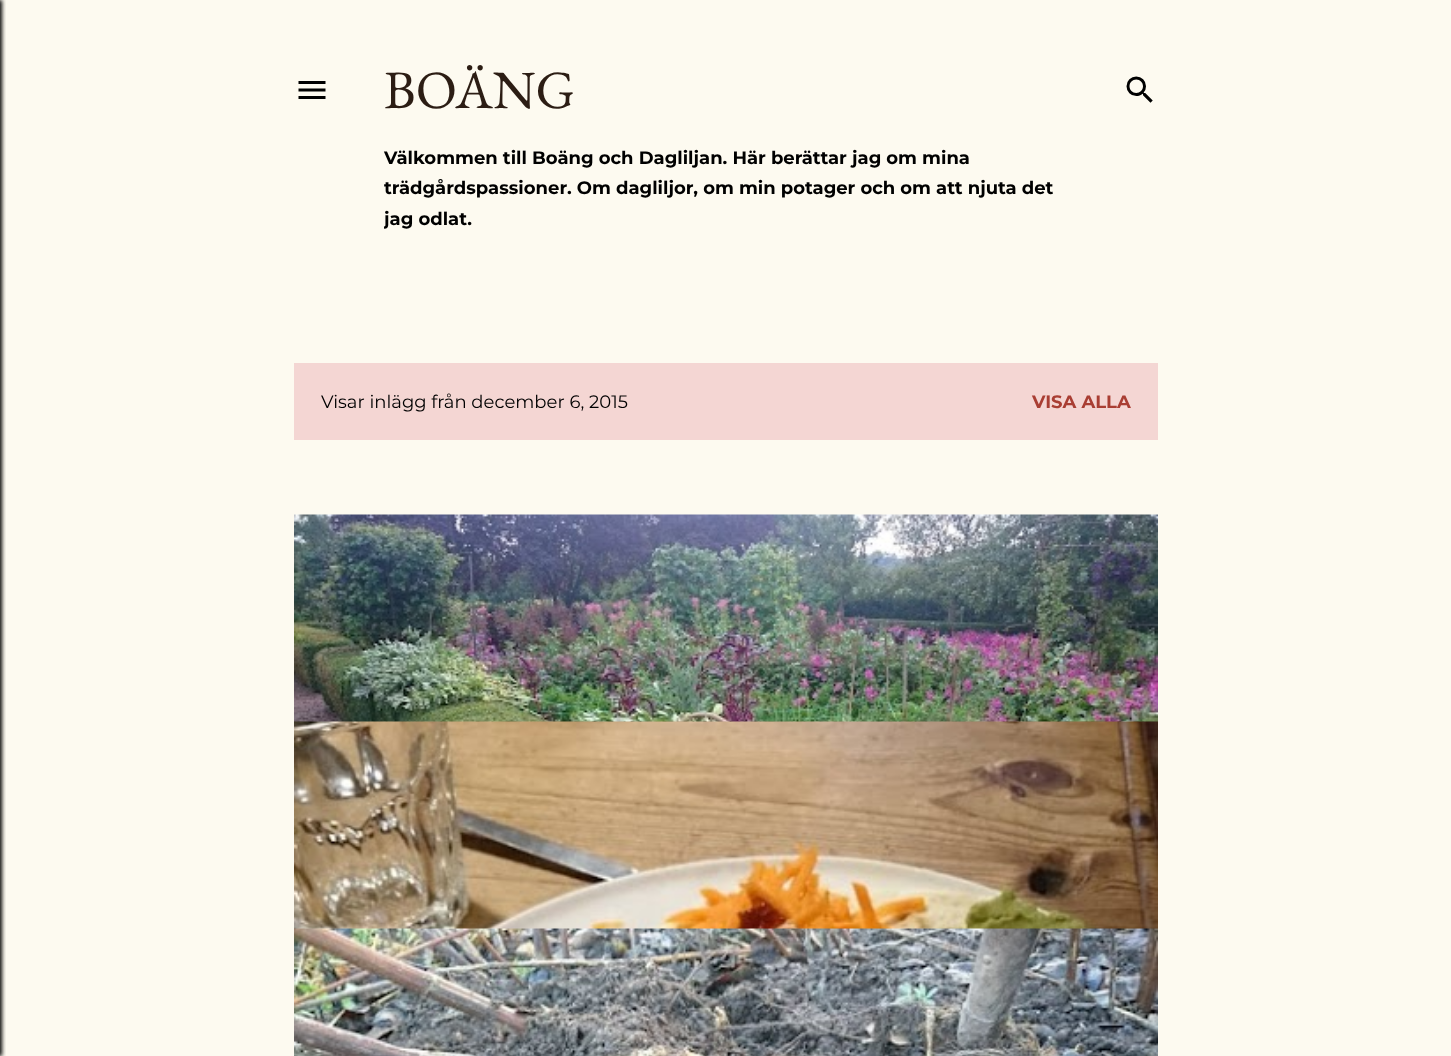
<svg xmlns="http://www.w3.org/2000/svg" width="1451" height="1056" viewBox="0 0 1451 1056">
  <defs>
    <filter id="blur1" x="-50%" y="-200%" width="200%" height="500%"><feGaussianBlur stdDeviation="2"/></filter>
    <clipPath id="clip1"><rect x="384" y="54" width="684" height="198"/></clipPath>
  </defs>
  <rect width="100%" height="100%" fill="#fdfaf0"/>
  <rect x="-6" y="0" width="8" height="1056" fill="#000000" filter="url(#blur1)"/>
  <image x="298" y="81" width="28" height="18" href="img1.png"/>
  <text x="384" y="108" font-family="EB Garamond" font-size="54" fill="#2c1d14">BOÄNG</text>
  <text x="384" y="164" font-family="Montserrat" font-size="18" font-weight="bold" fill="#000000">Välkommen till Boäng och Dagliljan. Här berättar jag om mina</text>
  <text x="384" y="194" font-family="Montserrat" font-size="18" font-weight="bold" fill="#000000">trädgårdspassioner. Om dagliljor, om min potager och om att njuta det</text>
  <g clip-path="url(#clip1)">
    <text x="384" y="225" font-family="Montserrat" font-size="18" font-weight="bold" fill="#000000">jag odlat.</text>
  </g>
  <image x="1126" y="76" width="27" height="27" href="img2.png"/>
  <rect x="294" y="363" width="864" height="77" fill="#f4d6d3"/>
  <text x="321" y="408" font-family="Montserrat" font-size="18" fill="#000000">Visar inlägg från december 6, 2015</text>
  <text x="1032" y="408" font-family="Montserrat" font-size="18" font-weight="bold" fill="#a93e33">VISA ALLA</text>
  <image x="294" y="514" width="864" height="208" href="img3.png"/>
  <image x="294" y="721" width="864" height="208" href="img4.png"/>
  <image x="294" y="928" width="864" height="128" href="img5.png"/>
</svg>
